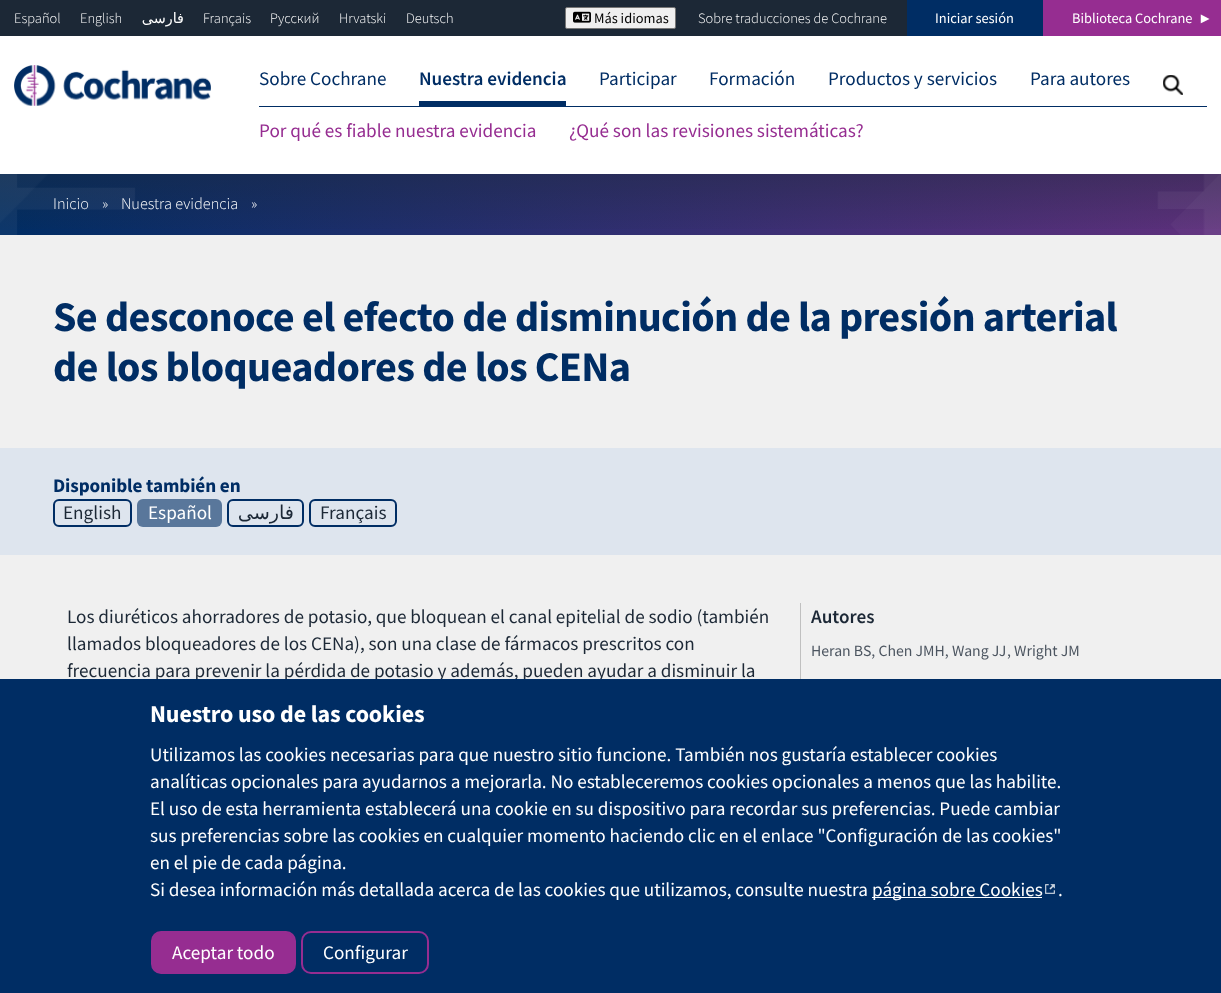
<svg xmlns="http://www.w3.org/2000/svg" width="1221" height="993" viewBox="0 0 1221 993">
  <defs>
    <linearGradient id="g1" gradientUnits="userSpaceOnUse" x1="0" y1="205" x2="1221" y2="204"><stop offset="0" stop-color="#002d64"/><stop offset="1" stop-color="#5f307d"/></linearGradient>
    <linearGradient id="g2" gradientUnits="userSpaceOnUse" x1="611" y1="78" x2="611" y2="235"><stop offset="0" stop-color="#1c2836"/><stop offset="1" stop-color="#1c2836" stop-opacity="0"/></linearGradient>
  </defs>
  <rect width="100%" height="100%" fill="#f0f0f0"/>
  <rect x="0" y="0" width="907" height="36" fill="#1c2836"/>
  <rect x="0" y="36" width="1221" height="138" fill="#ffffff"/>
  <text x="14" y="23" font-family="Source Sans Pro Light" font-size="14.4" font-weight="300" fill="#ffffff">Español</text>
  <text x="80" y="23" font-family="Source Sans Pro Light" font-size="14.4" font-weight="300" fill="#ffffff">English</text>
  <text x="184" y="23" font-family="DejaVu Sans" font-size="14.4" direction="rtl" fill="#ffffff">فارسی</text>
  <text x="203" y="23" font-family="Source Sans Pro Light" font-size="14.4" font-weight="300" fill="#ffffff">Français</text>
  <text x="270" y="23" font-family="Source Sans Pro Light" font-size="14.4" font-weight="300" fill="#ffffff">Русский</text>
  <text x="339" y="23" font-family="Source Sans Pro Light" font-size="14.4" font-weight="300" fill="#ffffff">Hrvatski</text>
  <text x="406" y="23" font-family="Source Sans Pro Light" font-size="14.4" font-weight="300" fill="#ffffff">Deutsch</text>
  <rect x="565.5" y="7.5" width="110" height="21" rx="1.5" fill="#efefef" stroke="#767676"/>
  <image x="573" y="11" width="18" height="12" href="img1.png"/>
  <text x="594" y="23" font-family="Source Sans Pro" font-size="14.4" fill="#000000">Más idiomas</text>
  <text x="698" y="23" font-family="Source Sans Pro Light" font-size="14.4" font-weight="300" fill="#ffffff">Sobre traducciones de Cochrane</text>
  <rect x="907" y="0" width="136" height="36" fill="#002d64"/>
  <text x="935" y="23" font-family="Source Sans Pro" font-size="14.4" fill="#ffffff">Iniciar sesión</text>
  <rect x="1043" y="0" width="178" height="36" fill="#962d91"/>
  <text x="1072" y="23" font-family="Source Sans Pro" font-size="14.4" fill="#ffffff">Biblioteca Cochrane</text>
  <text x="1198" y="23" font-family="Liberation Sans" font-size="14.4" fill="#ffffff">►</text>
  <image x="14" y="65" width="197" height="41" href="img2.png"/>
  <text x="259" y="85" font-family="Source Sans Pro" font-size="19.2" fill="#002d64">Sobre Cochrane</text>
  <text x="709" y="85" font-family="Source Sans Pro" font-size="19.2" fill="#002d64">Formación</text>
  <rect x="419" y="101" width="147" height="5" fill="#002d64"/>
  <text x="419" y="85" font-family="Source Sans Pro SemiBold" font-size="19.2" font-weight="600" fill="#002d64">Nuestra evidencia</text>
  <rect x="259" y="106" width="948" height="1" fill="#002d64"/>
  <text x="259" y="137" font-family="Source Sans Pro" font-size="19.2" fill="#962d91">Por qué es fiable nuestra evidencia</text>
  <text x="569" y="137" font-family="Source Sans Pro" font-size="19.2" fill="#962d91">¿Qué son las revisiones sistemáticas?</text>
  <text x="599" y="85" font-family="Source Sans Pro" font-size="19.2" fill="#002d64">Participar</text>
  <text x="828" y="85" font-family="Source Sans Pro" font-size="19.2" fill="#002d64">Productos y servicios</text>
  <text x="1030" y="85" font-family="Source Sans Pro" font-size="19.2" fill="#002d64">Para autores</text>
  <image x="1163" y="75" width="20" height="20" href="img3.png"/>
  <rect x="0" y="174" width="1221" height="61" fill="url(#g1)"/>
  <rect x="0" y="174" width="1221" height="55" fill="url(#g2)"/>
  <image x="0" y="174" width="1221" height="61" href="img4.png"/>
  <image x="0" y="174" width="1221" height="61" href="img5.png"/>
  <text x="53" y="209" font-family="Source Sans Pro Light" font-size="16.25" font-weight="300" fill="#ffffff">Inicio</text>
  <text x="102" y="209" font-family="Source Sans Pro Light" font-size="15.75" font-weight="300" fill="#ffffff">»</text>
  <text x="121" y="209" font-family="Source Sans Pro Light" font-size="16.25" font-weight="300" fill="#ffffff">Nuestra evidencia</text>
  <text x="251" y="209" font-family="Source Sans Pro Light" font-size="15.75" font-weight="300" fill="#ffffff">»</text>
  <text x="53" y="331" font-family="Source Sans Pro" font-size="42.25" font-weight="bold" letter-spacing="-0.63" fill="#002d64">Se desconoce el efecto de disminución de la presión arterial</text>
  <text x="53" y="381" font-family="Source Sans Pro" font-size="42.25" font-weight="bold" letter-spacing="-0.63" fill="#002d64">de los bloqueadores de los CENa</text>
  <rect x="0" y="448" width="1221" height="107" fill="#dee5ee"/>
  <text x="53" y="492" font-family="Source Sans Pro" font-size="19.2" font-weight="bold" letter-spacing="-0.1" fill="#002d64">Disponible también en</text>
  <rect x="54" y="500" width="77" height="26" rx="5" fill="none" stroke="#002d64" stroke-width="2"/>
  <text x="63" y="519" font-family="Source Sans Pro" font-size="19.2" fill="#1c2836">English</text>
  <rect x="137" y="499" width="85" height="28" rx="6" fill="#59779b"/>
  <text x="148" y="519" font-family="Source Sans Pro" font-size="19.2" fill="#ffffff">Español</text>
  <rect x="228" y="500" width="75" height="26" rx="5" fill="none" stroke="#002d64" stroke-width="2"/>
  <text x="294" y="519" font-family="DejaVu Sans" font-size="19.2" direction="rtl" fill="#1c2836">فارسی</text>
  <rect x="310" y="500" width="86" height="26" rx="5" fill="none" stroke="#002d64" stroke-width="2"/>
  <text x="320" y="519" font-family="Source Sans Pro" font-size="19.2" fill="#1c2836">Français</text>
  <text x="67" y="623" font-family="Source Sans Pro" font-size="19.2" fill="#1c2836">Los diuréticos ahorradores de potasio, que bloquean el canal epitelial de sodio (también</text>
  <text x="67" y="650" font-family="Source Sans Pro" font-size="19.2" fill="#1c2836">llamados bloqueadores de los CENa), son una clase de fármacos prescritos con</text>
  <text x="67" y="677" font-family="Source Sans Pro" font-size="19.2" fill="#1c2836">frecuencia para prevenir la pérdida de potasio y además, pueden ayudar a disminuir la</text>
  <rect x="800" y="603" width="1" height="76" fill="#c0c0c0"/>
  <text x="811" y="623" font-family="Source Sans Pro SemiBold" font-size="19.2" font-weight="600" fill="#1c2836">Autores</text>
  <text x="811" y="656" font-family="Source Sans Pro" font-size="15.75" fill="#4c5560">Heran BS, Chen JMH,</text>
  <text x="952" y="656" font-family="Source Sans Pro" font-size="15.75" fill="#4c5560">Wang JJ</text>
  <text x="1007" y="656" font-family="Source Sans Pro" font-size="15.75" fill="#4c5560">, Wright JM</text>
  <rect x="0" y="679" width="1221" height="314" fill="#002d64"/>
  <text x="150" y="722" font-family="Source Sans Pro" font-size="24" font-weight="bold" letter-spacing="-0.1" fill="#ffffff">Nuestro uso de las cookies</text>
  <text x="150" y="761" font-family="Source Sans Pro" font-size="19.2" fill="#ffffff">Utilizamos las cookies necesarias para que nuestro sitio funcione. También nos gustaría establecer cookies</text>
  <text x="150" y="788" font-family="Source Sans Pro" font-size="19.2" fill="#ffffff">analíticas opcionales para ayudarnos a mejorarla. No estableceremos cookies opcionales a menos que las habilite.</text>
  <text x="150" y="815" font-family="Source Sans Pro" font-size="19.2" fill="#ffffff">El uso de esta herramienta establecerá una cookie en su dispositivo para recordar sus preferencias. Puede cambiar</text>
  <text x="150" y="842" font-family="Source Sans Pro" font-size="19.2" fill="#ffffff">sus preferencias sobre las cookies en cualquier momento haciendo clic en el enlace "Configuración de las cookies"</text>
  <text x="150" y="869" font-family="Source Sans Pro" font-size="19.2" fill="#ffffff">en el pie de cada página.</text>
  <text x="150" y="896" font-family="Source Sans Pro" font-size="19.2" fill="#ffffff">Si desea información más detallada acerca de las cookies que utilizamos, consulte nuestra</text>
  <rect x="872" y="897" width="170" height="1" fill="#ffffff"/>
  <text x="872" y="896" font-family="Source Sans Pro" font-size="19.2" fill="#ffffff">página sobre Cookies</text>
  <image x="1045" y="884" width="10" height="10" href="img6.png"/>
  <text x="1058" y="896" font-family="Source Sans Pro" font-size="19.2" fill="#ffffff">.</text>
  <rect x="152" y="932" width="143" height="41" rx="9" fill="#962d91" stroke="#962d91" stroke-width="2"/>
  <text x="172" y="959" font-family="Source Sans Pro" font-size="19.2" fill="#ffffff">Aceptar todo</text>
  <rect x="302" y="932" width="126" height="41" rx="9" fill="none" stroke="#962d91" stroke-width="2"/>
  <text x="323" y="959" font-family="Source Sans Pro" font-size="19.2" fill="#ffffff">Configurar</text>
</svg>
